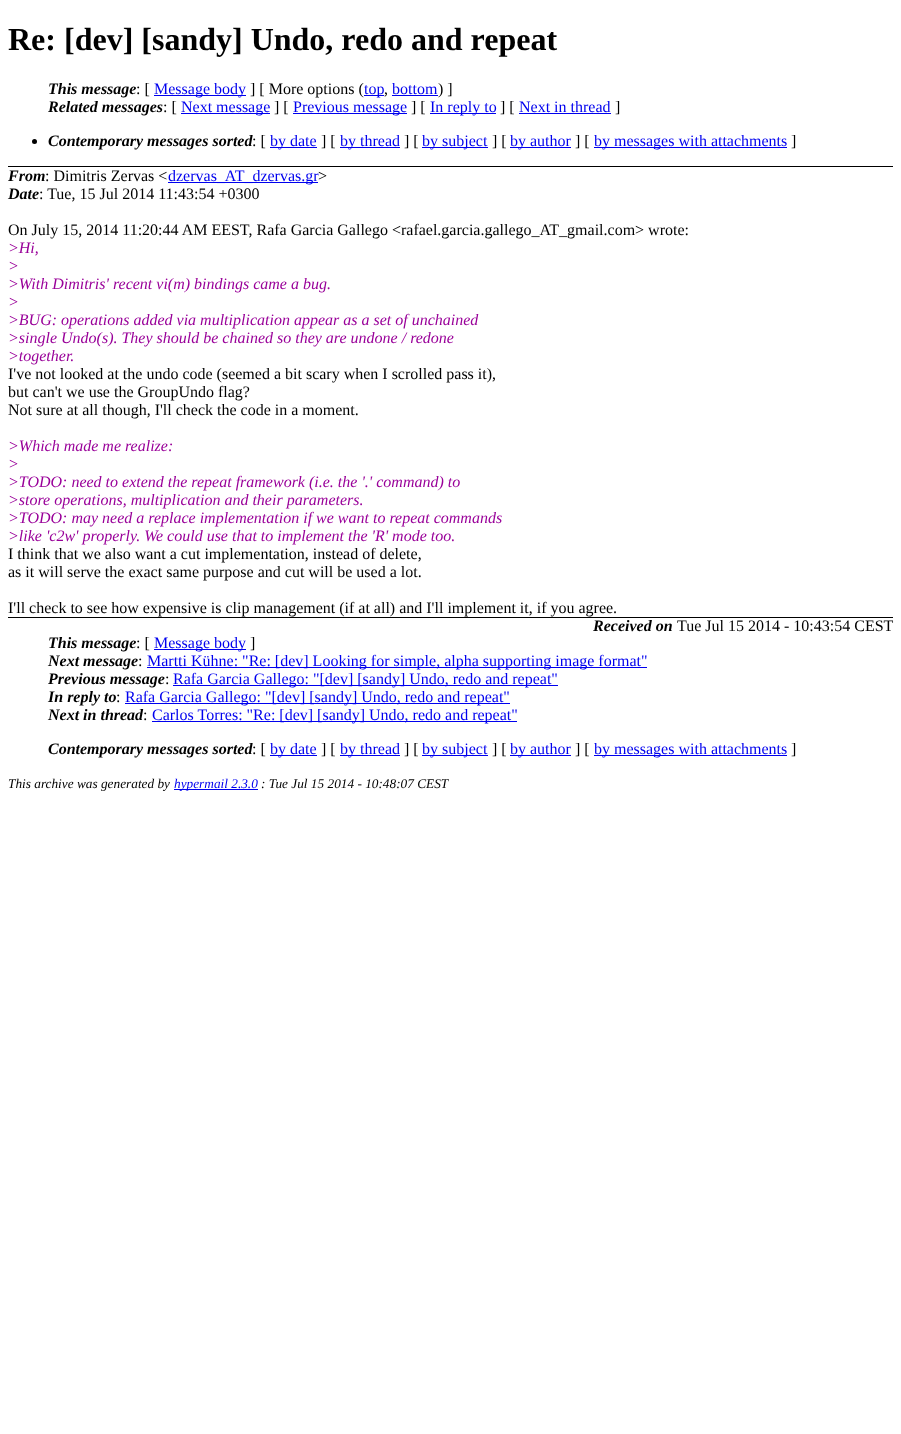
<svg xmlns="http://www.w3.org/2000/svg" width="901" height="1434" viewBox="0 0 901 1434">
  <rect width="100%" height="100%" fill="#ffffff"/>
  <rect x="8" y="166" width="885" height="1" fill="#000000"/>
  <text x="8" y="50" font-family="Liberation Serif" font-size="32" font-weight="bold" fill="#000000">Re: [dev] [sandy] Undo, redo and repeat</text>
  <text x="48" y="94" font-family="Liberation Serif" font-size="16" font-weight="bold" font-style="italic" fill="#000000">This message</text>
  <text x="136" y="94" font-family="Liberation Serif" font-size="16" fill="#000000">: [</text>
  <rect x="154" y="95" width="92" height="1" fill="#0000ee"/>
  <text x="154" y="94" font-family="Liberation Serif" font-size="16" fill="#0000ee">Message body</text>
  <text x="250" y="94" font-family="Liberation Serif" font-size="16" fill="#000000">] [ More options (</text>
  <rect x="364" y="95" width="20" height="1" fill="#0000ee"/>
  <text x="364" y="94" font-family="Liberation Serif" font-size="16" fill="#0000ee">top</text>
  <text x="384" y="94" font-family="Liberation Serif" font-size="16" fill="#000000">,</text>
  <text x="392" y="94" font-family="Liberation Serif" font-size="16" fill="#0000ee">bottom</text>
  <rect x="392" y="95" width="46" height="1" fill="#0000ee"/>
  <text x="438" y="94" font-family="Liberation Serif" font-size="16" fill="#000000">) ]</text>
  <text x="48" y="112" font-family="Liberation Serif" font-size="16" font-weight="bold" font-style="italic" fill="#000000">Related messages</text>
  <text x="163" y="112" font-family="Liberation Serif" font-size="16" fill="#000000">: [</text>
  <rect x="181" y="113" width="89" height="1" fill="#0000ee"/>
  <text x="181" y="112" font-family="Liberation Serif" font-size="16" fill="#0000ee">Next message</text>
  <text x="274" y="112" font-family="Liberation Serif" font-size="16" fill="#000000">] [</text>
  <rect x="293" y="113" width="114" height="1" fill="#0000ee"/>
  <text x="293" y="112" font-family="Liberation Serif" font-size="16" fill="#0000ee">Previous message</text>
  <text x="411" y="112" font-family="Liberation Serif" font-size="16" fill="#000000">] [</text>
  <rect x="430" y="113" width="66" height="1" fill="#0000ee"/>
  <text x="430" y="112" font-family="Liberation Serif" font-size="16" fill="#0000ee">In reply to</text>
  <text x="500" y="112" font-family="Liberation Serif" font-size="16" fill="#000000">] [</text>
  <text x="519" y="112" font-family="Liberation Serif" font-size="16" fill="#0000ee">Next in thread</text>
  <rect x="519" y="113" width="92" height="1" fill="#0000ee"/>
  <text x="615" y="112" font-family="Liberation Serif" font-size="16" fill="#000000">]</text>
  <circle cx="34.5" cy="141.5" r="2.5" fill="#000000"/>
  <text x="48" y="146" font-family="Liberation Serif" font-size="16" font-weight="bold" font-style="italic" fill="#000000">Contemporary messages sorted</text>
  <text x="252" y="146" font-family="Liberation Serif" font-size="16" fill="#000000">: [</text>
  <rect x="270" y="147" width="47" height="1" fill="#0000ee"/>
  <text x="270" y="146" font-family="Liberation Serif" font-size="16" fill="#0000ee">by date</text>
  <text x="321" y="146" font-family="Liberation Serif" font-size="16" fill="#000000">] [</text>
  <rect x="340" y="147" width="60" height="1" fill="#0000ee"/>
  <text x="340" y="146" font-family="Liberation Serif" font-size="16" fill="#0000ee">by thread</text>
  <text x="404" y="146" font-family="Liberation Serif" font-size="16" fill="#000000">] [</text>
  <rect x="422" y="147" width="66" height="1" fill="#0000ee"/>
  <text x="422" y="146" font-family="Liberation Serif" font-size="16" fill="#0000ee">by subject</text>
  <text x="492" y="146" font-family="Liberation Serif" font-size="16" fill="#000000">] [</text>
  <rect x="510" y="147" width="61" height="1" fill="#0000ee"/>
  <text x="510" y="146" font-family="Liberation Serif" font-size="16" fill="#0000ee">by author</text>
  <text x="575" y="146" font-family="Liberation Serif" font-size="16" fill="#000000">] [</text>
  <rect x="594" y="147" width="193" height="1" fill="#0000ee"/>
  <text x="594" y="146" font-family="Liberation Serif" font-size="16" fill="#0000ee">by messages with attachments</text>
  <text x="791" y="146" font-family="Liberation Serif" font-size="16" fill="#000000">]</text>
  <text x="8" y="181" font-family="Liberation Serif" font-size="16" font-weight="bold" font-style="italic" fill="#000000">From</text>
  <text x="45" y="181" font-family="Liberation Serif" font-size="16" fill="#000000">: Dimitris Zervas &lt;</text>
  <rect x="168" y="182" width="150" height="1" fill="#0000ee"/>
  <text x="168" y="181" font-family="Liberation Serif" font-size="16" fill="#0000ee">dzervas_AT_dzervas.gr</text>
  <text x="318" y="181" font-family="Liberation Serif" font-size="16" fill="#000000">&gt;</text>
  <text x="8" y="199" font-family="Liberation Serif" font-size="16" font-weight="bold" font-style="italic" fill="#000000">Date</text>
  <text x="39" y="199" font-family="Liberation Serif" font-size="16" fill="#000000">: Tue, 15 Jul 2014 11:43:54 +0300</text>
  <text x="8" y="235" font-family="Liberation Serif" font-size="16" fill="#000000">On July 15, 2014 11:20:44 AM EEST, Rafa Garcia Gallego &lt;rafael.garcia.gallego_AT_gmail.com&gt; wrote:</text>
  <text x="8" y="253" font-family="Liberation Serif" font-size="16" font-style="italic" fill="#990099">&gt;Hi,</text>
  <text x="8" y="271" font-family="Liberation Serif" font-size="16" font-style="italic" fill="#990099">&gt;</text>
  <text x="8" y="289" font-family="Liberation Serif" font-size="16" font-style="italic" fill="#990099">&gt;With Dimitris' recent vi(m) bindings came a bug.</text>
  <text x="8" y="307" font-family="Liberation Serif" font-size="16" font-style="italic" fill="#990099">&gt;</text>
  <text x="8" y="325" font-family="Liberation Serif" font-size="16" font-style="italic" fill="#990099">&gt;BUG: operations added via multiplication appear as a set of unchained</text>
  <text x="8" y="343" font-family="Liberation Serif" font-size="16" font-style="italic" fill="#990099">&gt;single Undo(s). They should be chained so they are undone / redone</text>
  <text x="8" y="361" font-family="Liberation Serif" font-size="16" font-style="italic" fill="#990099">&gt;together.</text>
  <text x="8" y="379" font-family="Liberation Serif" font-size="16" fill="#000000">I've not looked at the undo code (seemed a bit scary when I scrolled pass it),</text>
  <text x="8" y="397" font-family="Liberation Serif" font-size="16" fill="#000000">but can't we use the GroupUndo flag?</text>
  <text x="8" y="415" font-family="Liberation Serif" font-size="16" fill="#000000">Not sure at all though, I'll check the code in a moment.</text>
  <text x="8" y="451" font-family="Liberation Serif" font-size="16" font-style="italic" fill="#990099">&gt;Which made me realize:</text>
  <text x="8" y="469" font-family="Liberation Serif" font-size="16" font-style="italic" fill="#990099">&gt;</text>
  <text x="8" y="487" font-family="Liberation Serif" font-size="16" font-style="italic" fill="#990099">&gt;TODO: need to extend the repeat framework (i.e. the '.' command) to</text>
  <text x="8" y="505" font-family="Liberation Serif" font-size="16" font-style="italic" fill="#990099">&gt;store operations, multiplication and their parameters.</text>
  <text x="8" y="523" font-family="Liberation Serif" font-size="16" font-style="italic" fill="#990099">&gt;TODO: may need a replace implementation if we want to repeat commands</text>
  <text x="8" y="541" font-family="Liberation Serif" font-size="16" font-style="italic" fill="#990099">&gt;like 'c2w' properly. We could use that to implement the 'R' mode too.</text>
  <text x="8" y="559" font-family="Liberation Serif" font-size="16" fill="#000000">I think that we also want a cut implementation, instead of delete,</text>
  <text x="8" y="577" font-family="Liberation Serif" font-size="16" fill="#000000">as it will serve the exact same purpose and cut will be used a lot.</text>
  <text x="8" y="613" font-family="Liberation Serif" font-size="16" fill="#000000">I'll check to see how expensive is clip management (if at all) and I'll implement it, if you agree.</text>
  <text x="593" y="631" font-family="Liberation Serif" font-size="16" font-weight="bold" font-style="italic" fill="#000000">Received on</text>
  <text x="677" y="631" font-family="Liberation Serif" font-size="16" fill="#000000">Tue Jul 15 2014 - 10:43:54 CEST</text>
  <rect x="8" y="617" width="885" height="1" fill="#000000"/>
  <text x="48" y="648" font-family="Liberation Serif" font-size="16" font-weight="bold" font-style="italic" fill="#000000">This message</text>
  <text x="136" y="648" font-family="Liberation Serif" font-size="16" fill="#000000">: [</text>
  <rect x="154" y="649" width="92" height="1" fill="#0000ee"/>
  <text x="154" y="648" font-family="Liberation Serif" font-size="16" fill="#0000ee">Message body</text>
  <text x="250" y="648" font-family="Liberation Serif" font-size="16" fill="#000000">]</text>
  <text x="48" y="666" font-family="Liberation Serif" font-size="16" font-weight="bold" font-style="italic" fill="#000000">Next message</text>
  <text x="138" y="666" font-family="Liberation Serif" font-size="16" fill="#000000">:</text>
  <rect x="147" y="667" width="500" height="1" fill="#0000ee"/>
  <text x="147" y="666" font-family="Liberation Serif" font-size="16" fill="#0000ee">Martti Kühne: "Re: [dev] Looking for simple, alpha supporting image format"</text>
  <text x="48" y="684" font-family="Liberation Serif" font-size="16" font-weight="bold" font-style="italic" fill="#000000">Previous message</text>
  <text x="165" y="684" font-family="Liberation Serif" font-size="16" fill="#000000">:</text>
  <rect x="173" y="685" width="385" height="1" fill="#0000ee"/>
  <text x="173" y="684" font-family="Liberation Serif" font-size="16" fill="#0000ee">Rafa Garcia Gallego: "[dev] [sandy] Undo, redo and repeat"</text>
  <text x="48" y="702" font-family="Liberation Serif" font-size="16" font-weight="bold" font-style="italic" fill="#000000">In reply to</text>
  <text x="116" y="702" font-family="Liberation Serif" font-size="16" fill="#000000">:</text>
  <rect x="125" y="703" width="385" height="1" fill="#0000ee"/>
  <text x="125" y="702" font-family="Liberation Serif" font-size="16" fill="#0000ee">Rafa Garcia Gallego: "[dev] [sandy] Undo, redo and repeat"</text>
  <text x="48" y="720" font-family="Liberation Serif" font-size="16" font-weight="bold" font-style="italic" fill="#000000">Next in thread</text>
  <text x="143" y="720" font-family="Liberation Serif" font-size="16" fill="#000000">:</text>
  <rect x="152" y="721" width="365" height="1" fill="#0000ee"/>
  <text x="152" y="720" font-family="Liberation Serif" font-size="16" fill="#0000ee">Carlos Torres: "Re: [dev] [sandy] Undo, redo and repeat"</text>
  <text x="48" y="754" font-family="Liberation Serif" font-size="16" font-weight="bold" font-style="italic" fill="#000000">Contemporary messages sorted</text>
  <text x="252" y="754" font-family="Liberation Serif" font-size="16" fill="#000000">: [</text>
  <rect x="270" y="755" width="47" height="1" fill="#0000ee"/>
  <text x="270" y="754" font-family="Liberation Serif" font-size="16" fill="#0000ee">by date</text>
  <text x="321" y="754" font-family="Liberation Serif" font-size="16" fill="#000000">] [</text>
  <rect x="340" y="755" width="60" height="1" fill="#0000ee"/>
  <text x="340" y="754" font-family="Liberation Serif" font-size="16" fill="#0000ee">by thread</text>
  <text x="404" y="754" font-family="Liberation Serif" font-size="16" fill="#000000">] [</text>
  <rect x="422" y="755" width="66" height="1" fill="#0000ee"/>
  <text x="422" y="754" font-family="Liberation Serif" font-size="16" fill="#0000ee">by subject</text>
  <text x="492" y="754" font-family="Liberation Serif" font-size="16" fill="#000000">] [</text>
  <rect x="510" y="755" width="61" height="1" fill="#0000ee"/>
  <text x="510" y="754" font-family="Liberation Serif" font-size="16" fill="#0000ee">by author</text>
  <text x="575" y="754" font-family="Liberation Serif" font-size="16" fill="#000000">] [</text>
  <rect x="594" y="755" width="193" height="1" fill="#0000ee"/>
  <text x="594" y="754" font-family="Liberation Serif" font-size="16" fill="#0000ee">by messages with attachments</text>
  <text x="791" y="754" font-family="Liberation Serif" font-size="16" fill="#000000">]</text>
  <text x="8" y="788" font-family="Liberation Serif" font-size="13.3" font-style="italic" fill="#000000">This archive was generated by</text>
  <rect x="174" y="789" width="84" height="1" fill="#0000ee"/>
  <text x="174" y="788" font-family="Liberation Serif" font-size="13.3" font-style="italic" fill="#0000ee">hypermail 2.3.0</text>
  <text x="261" y="788" font-family="Liberation Serif" font-size="13.3" font-style="italic" fill="#000000">: Tue Jul 15 2014 - 10:48:07 CEST</text>
</svg>
